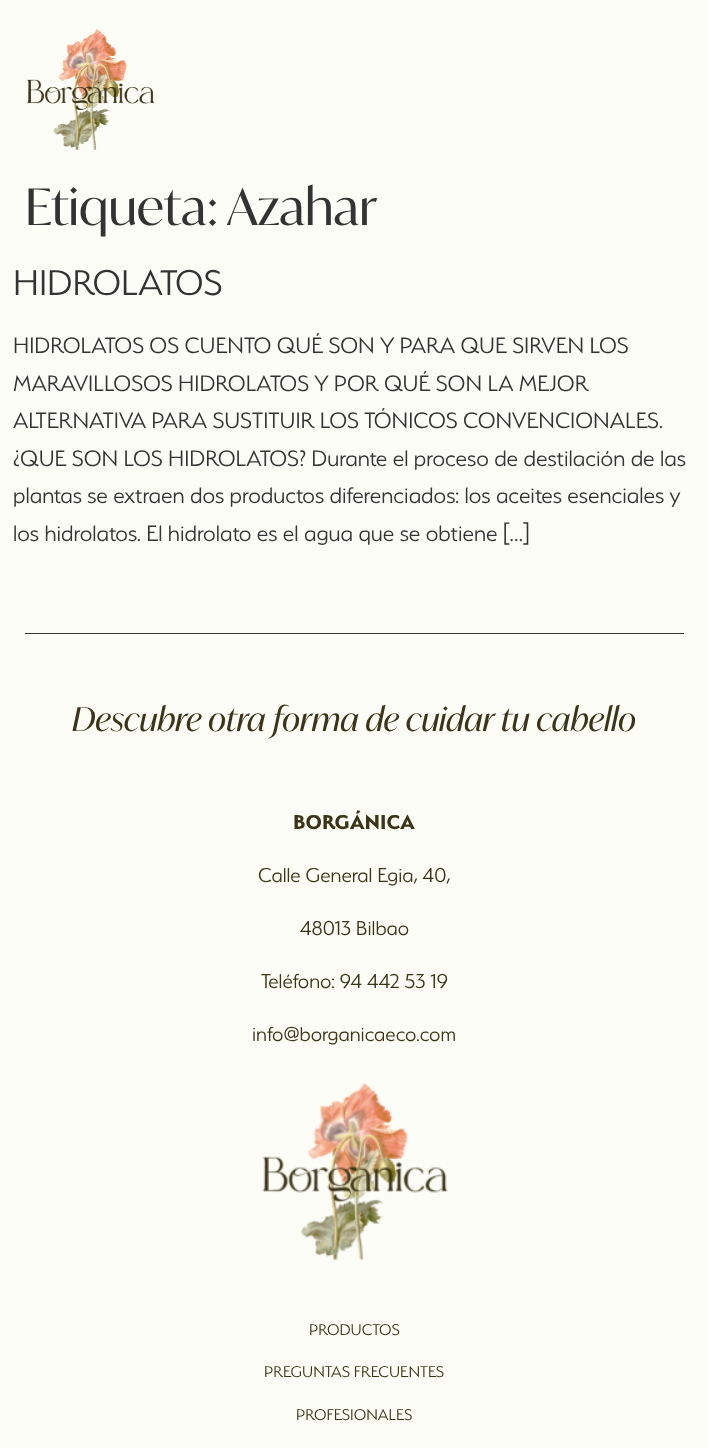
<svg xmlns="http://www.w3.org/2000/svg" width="708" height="1448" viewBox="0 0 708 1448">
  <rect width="100%" height="100%" fill="#fdfdf8"/>
  <image x="27" y="29" width="127" height="121" href="img1.png"/>
  <text x="25" y="225" font-family="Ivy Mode" font-size="50" fill="#333333">Etiqueta:</text>
  <text x="227" y="225" font-family="Ivy Mode" font-size="50" fill="#333333">Azahar</text>
  <text x="13" y="295" font-family="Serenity" font-size="40" font-weight="300" fill="#333333">HIDROLATOS</text>
  <text x="13" y="353" font-family="Serenity" font-size="25" font-weight="300" fill="#333333">HIDROLATOS OS CUENTO QUÉ SON Y PARA QUE SIRVEN LOS</text>
  <text x="13" y="391" font-family="Serenity" font-size="25" font-weight="300" fill="#333333">MARAVILLOSOS HIDROLATOS Y POR QUÉ SON LA MEJOR</text>
  <text x="13" y="428" font-family="Serenity" font-size="25" font-weight="300" fill="#333333">ALTERNATIVA PARA SUSTITUIR LOS TÓNICOS CONVENCIONALES.</text>
  <text x="13" y="466" font-family="Serenity" font-size="25" font-weight="300" fill="#333333">¿QUE SON LOS HIDROLATOS? Durante el proceso de destilación de las</text>
  <text x="13" y="503" font-family="Serenity" font-size="25" font-weight="300" fill="#333333">plantas se extraen dos productos diferenciados: los aceites esenciales y</text>
  <text x="13" y="541" font-family="Serenity" font-size="25" font-weight="300" fill="#333333">los hidrolatos. El hidrolato es el agua que se obtiene […]</text>
  <rect x="25" y="633" width="659" height="1" fill="#333333"/>
  <text x="72" y="731" font-family="Ivy Mode" font-size="32.5" font-style="italic" fill="#3c3417">Descubre otra forma de cuidar tu cabello</text>
  <text x="293" y="829" font-family="Serenity" font-size="22.5" font-weight="bold" fill="#3c3417">BORGÁNICA</text>
  <text x="258" y="882" font-family="Serenity" font-size="22.5" font-weight="300" fill="#3c3417">Calle General Egia, 40,</text>
  <text x="300" y="935" font-family="Serenity" font-size="22.5" font-weight="300" fill="#3c3417">48013 Bilbao</text>
  <text x="261" y="988" font-family="Serenity" font-size="22.5" font-weight="300" fill="#3c3417">Teléfono: 94 442 53 19</text>
  <text x="252" y="1041" font-family="Serenity" font-size="22.5" font-weight="300" fill="#3c3417">info@borganicaeco.com</text>
  <image x="262" y="1082" width="186" height="179" href="img2.png"/>
  <text x="309" y="1335" font-family="Serenity" font-size="17.5" font-weight="300" fill="#3c3417">PRODUCTOS</text>
  <text x="264" y="1377" font-family="Serenity" font-size="17.5" font-weight="300" fill="#3c3417">PREGUNTAS FRECUENTES</text>
  <text x="296" y="1420" font-family="Serenity" font-size="17.5" font-weight="300" fill="#3c3417">PROFESIONALES</text>
</svg>
